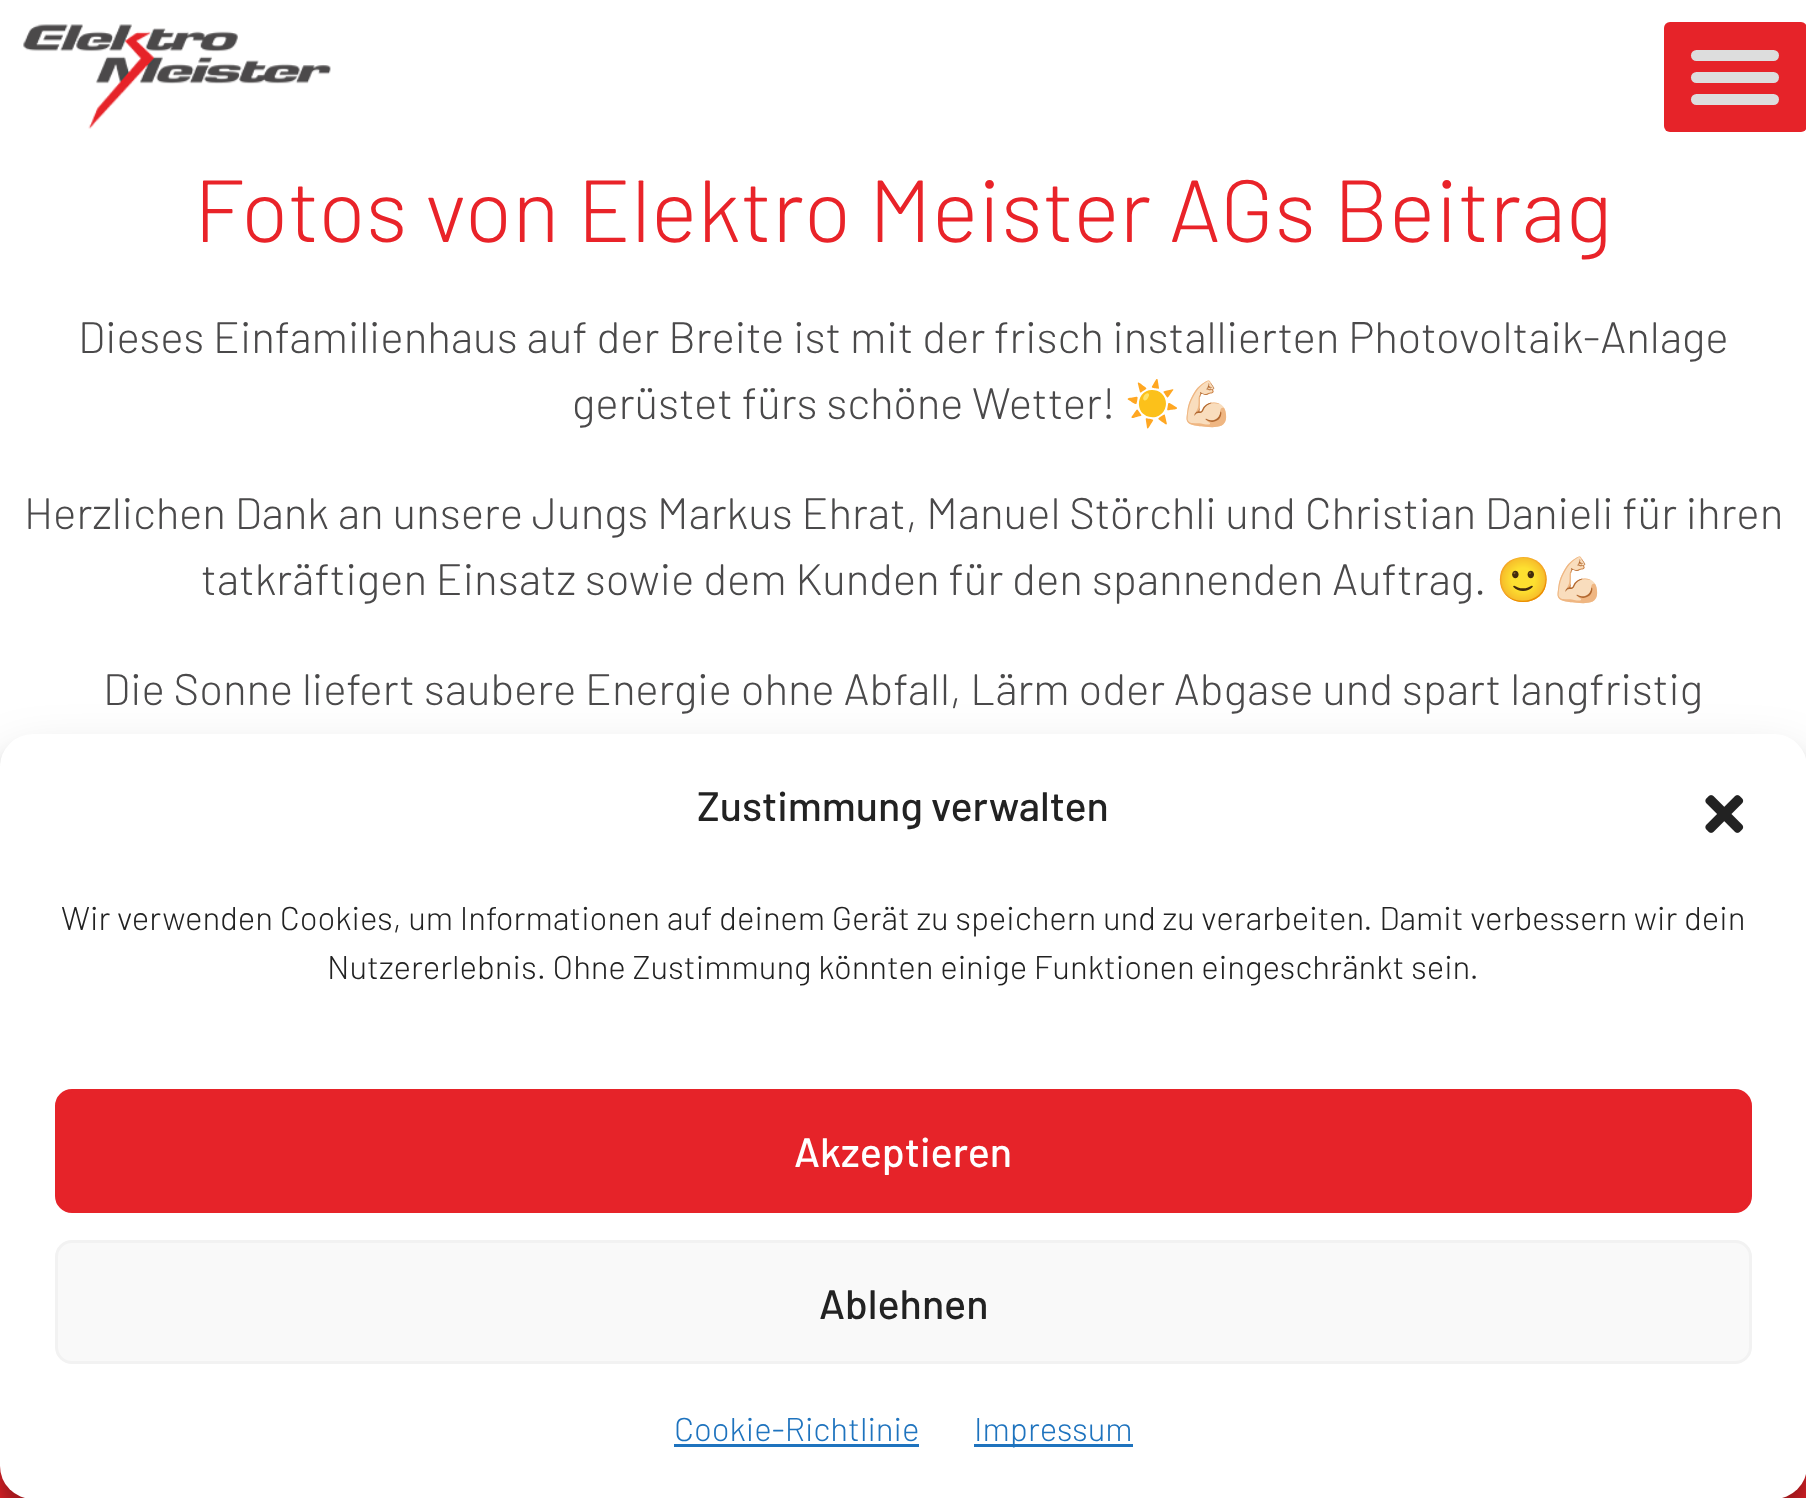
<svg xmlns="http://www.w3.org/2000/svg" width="1806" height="1498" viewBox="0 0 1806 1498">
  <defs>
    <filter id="blur1" x="-50%" y="-200%" width="200%" height="500%"><feGaussianBlur stdDeviation="8"/></filter>
    <filter id="blur2" x="-50%" y="-200%" width="200%" height="500%"><feGaussianBlur stdDeviation="27.5"/></filter>
  </defs>
  <rect width="100%" height="100%" fill="#ffffff"/>
  <image x="23" y="24" width="308" height="105" href="img1.png"/>
  <rect x="1664" y="22" width="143" height="110" rx="6" fill="#e62329"/>
  <rect x="1691" y="50" width="88" height="11" rx="5.5" fill="#dddddd"/>
  <rect x="1691" y="72" width="88" height="11" rx="5.5" fill="#dddddd"/>
  <rect x="1691" y="94" width="88" height="11" rx="5.5" fill="#dddddd"/>
  <text x="194" y="242" font-family="Barlow" font-size="88" font-weight="300" fill="#e92329">Fotos von Elektro Meister AGs Beitrag</text>
  <text x="78" y="353" font-family="Barlow" font-size="44" font-weight="300" fill="#4a494a">Dieses Einfamilienhaus auf der Breite ist mit der frisch installierten Photovoltaik-Anlage</text>
  <text x="572" y="419" font-family="Barlow" font-size="44" font-weight="300" fill="#4a494a">gerüstet fürs schöne Wetter!</text>
  <text x="1125" y="419" font-family="Noto Color Emoji" font-size="44" fill="#4a494a">☀️💪🏻</text>
  <text x="24" y="529" font-family="Barlow" font-size="44" font-weight="300" fill="#4a494a">Herzlichen Dank an unsere Jungs Markus Ehrat, Manuel Störchli und Christian Danieli für ihren</text>
  <text x="201" y="595" font-family="Barlow" font-size="44" font-weight="300" fill="#4a494a">tatkräftigen Einsatz sowie dem Kunden für den spannenden Auftrag.</text>
  <text x="1496" y="595" font-family="Noto Color Emoji" font-size="44" fill="#4a494a">🙂💪🏻</text>
  <text x="103" y="705" font-family="Barlow" font-size="44" font-weight="300" fill="#4a494a">Die Sonne liefert saubere Energie ohne Abfall, Lärm oder Abgase und spart langfristig</text>
  <rect x="0" y="1466" width="1806" height="32" fill="#e92329"/>
  <rect x="0" y="751" width="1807" height="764" rx="33" fill="#000000" fill-opacity="0.23" filter="url(#blur1)"/>
  <rect x="0" y="762" width="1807" height="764" rx="33" fill="#000000" fill-opacity="0.19" filter="url(#blur2)"/>
  <rect x="0" y="734" width="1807" height="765" rx="33" fill="#ffffff"/>
  <text x="697" y="821" font-family="Barlow" font-size="41.25" font-weight="500" fill="#222222">Zustimmung verwalten</text>
  <image x="1705" y="795" width="39" height="38" href="img2.png"/>
  <text x="61" y="930" font-family="Barlow" font-size="33" font-weight="300" fill="#222222">Wir verwenden Cookies, um Informationen auf deinem Gerät zu speichern und zu verarbeiten. Damit verbessern wir dein</text>
  <text x="327" y="979" font-family="Barlow" font-size="33" font-weight="300" fill="#222222">Nutzererlebnis. Ohne Zustimmung könnten einige Funktionen eingeschränkt sein.</text>
  <rect x="56.5" y="1090.5" width="1694" height="121" rx="15.5" fill="#e62329" stroke="#e62329" stroke-width="3"/>
  <text x="794" y="1167" font-family="Barlow" font-size="41.25" font-weight="500" fill="#ffffff">Akzeptieren</text>
  <rect x="56.5" y="1241.5" width="1694" height="121" rx="15.5" fill="#f9f9f9" stroke="#f2f2f2" stroke-width="3"/>
  <text x="819" y="1319" font-family="Barlow" font-size="41.25" font-weight="500" fill="#222222">Ablehnen</text>
  <text x="674" y="1441" font-family="Barlow" font-size="33" font-weight="300" fill="#1e73be">Cookie-Richtlinie</text>
  <rect x="674" y="1444" width="245" height="3" fill="#1e73be"/>
  <rect x="974" y="1444" width="159" height="3" fill="#1e73be"/>
  <text x="974" y="1441" font-family="Barlow" font-size="33" font-weight="300" fill="#1e73be">Impressum</text>
</svg>
